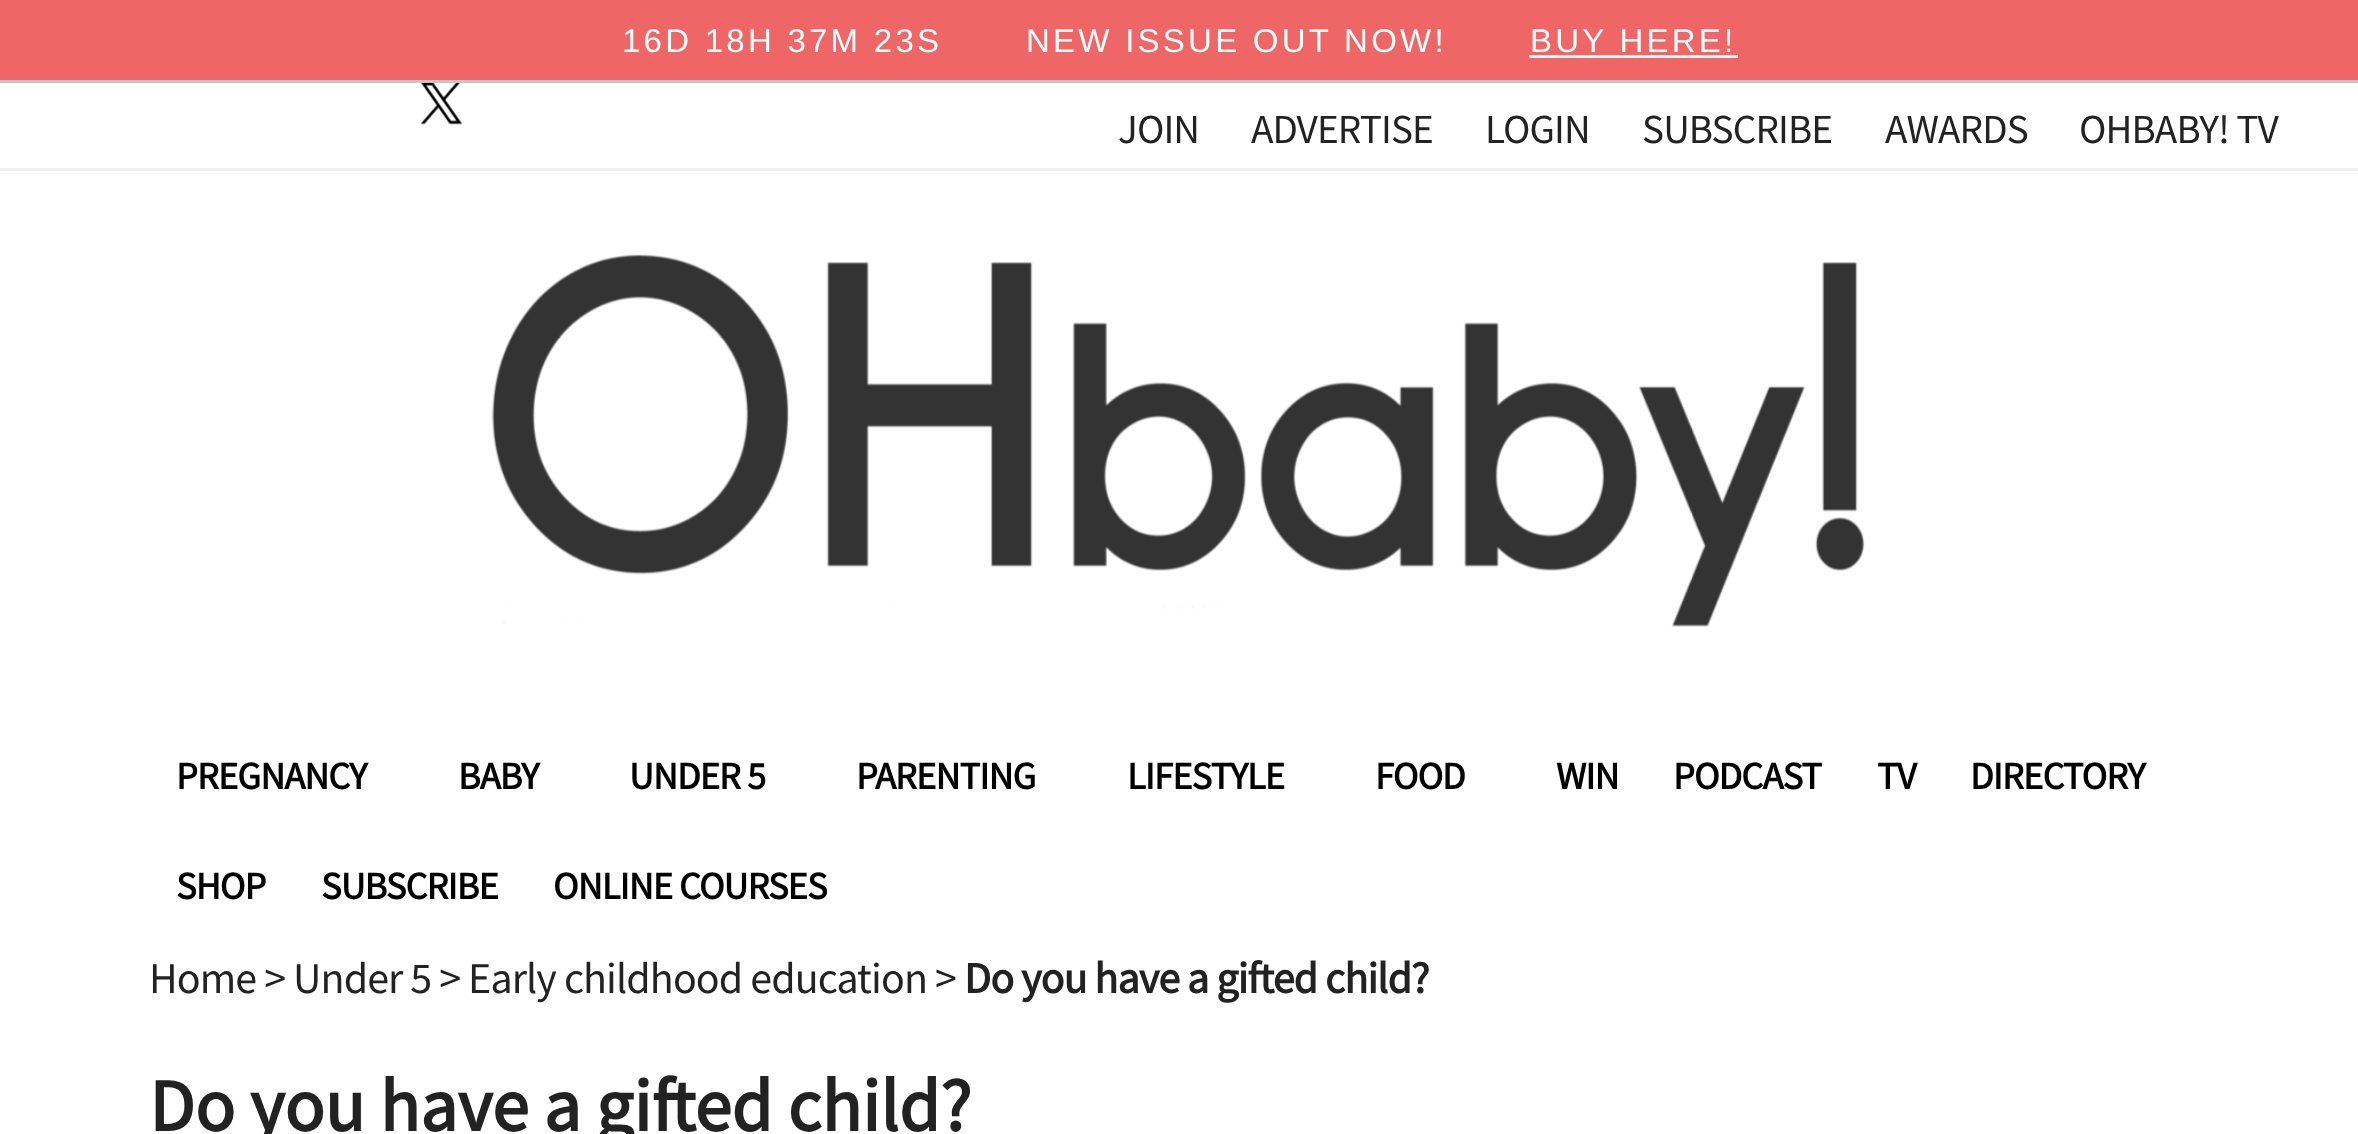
<svg xmlns="http://www.w3.org/2000/svg" width="2358" height="1134" viewBox="0 0 2358 1134">
  <rect width="100%" height="100%" fill="#ffffff"/>
  <rect x="0" y="0" width="2358" height="80" fill="#ef6667"/>
  <rect x="0" y="80" width="2358" height="3" fill="#c3c5c8"/>
  <text x="622" y="52" font-family="Liberation Sans" font-size="33" letter-spacing="3.25" fill="#ffffff">16D 18H 37M 23S</text>
  <text x="1026" y="52" font-family="Liberation Sans" font-size="33" letter-spacing="3.25" fill="#ffffff">NEW ISSUE OUT NOW!</text>
  <text x="1530" y="52" font-family="Liberation Sans" font-size="33" letter-spacing="3.25" fill="#ffffff">BUY HERE!</text>
  <rect x="1529" y="55" width="209" height="3" fill="#ffffff"/>
  <rect x="0" y="168" width="2358" height="3" fill="#eeeeee"/>
  <image x="421" y="83" width="42" height="42" href="img1.png"/>
  <text x="1118" y="143" font-family="Source Sans Pro" font-size="41.25" letter-spacing="-0.9" fill="#222222">JOIN</text>
  <text x="1251" y="143" font-family="Source Sans Pro" font-size="41.25" letter-spacing="-0.9" fill="#222222">ADVERTISE</text>
  <text x="1485" y="143" font-family="Source Sans Pro" font-size="41.25" letter-spacing="-0.9" fill="#222222">LOGIN</text>
  <text x="1642" y="143" font-family="Source Sans Pro" font-size="41.25" letter-spacing="-0.9" fill="#222222">SUBSCRIBE</text>
  <text x="1885" y="143" font-family="Source Sans Pro" font-size="41.25" letter-spacing="-0.9" fill="#222222">AWARDS</text>
  <text x="2079" y="143" font-family="Source Sans Pro" font-size="41.25" letter-spacing="-0.9" fill="#222222">OHBABY! TV</text>
  <image x="491" y="254" width="1374" height="373" href="img2.png"/>
  <text x="176" y="789" font-family="Source Sans Pro" font-size="38.5" font-weight="bold" letter-spacing="-0.9" fill="#000000">PREGNANCY</text>
  <text x="458" y="789" font-family="Source Sans Pro" font-size="38.5" font-weight="bold" letter-spacing="-0.9" fill="#000000">BABY</text>
  <text x="629" y="789" font-family="Source Sans Pro" font-size="38.5" font-weight="bold" letter-spacing="-0.9" fill="#000000">UNDER 5</text>
  <text x="856" y="789" font-family="Source Sans Pro" font-size="38.5" font-weight="bold" letter-spacing="-0.9" fill="#000000">PARENTING</text>
  <text x="1127" y="789" font-family="Source Sans Pro" font-size="38.5" font-weight="bold" letter-spacing="-0.9" fill="#000000">LIFESTYLE</text>
  <text x="1375" y="789" font-family="Source Sans Pro" font-size="38.5" font-weight="bold" letter-spacing="-0.9" fill="#000000">FOOD</text>
  <text x="1556" y="789" font-family="Source Sans Pro" font-size="38.5" font-weight="bold" letter-spacing="-0.9" fill="#000000">WIN</text>
  <text x="1673" y="789" font-family="Source Sans Pro" font-size="38.5" font-weight="bold" letter-spacing="-0.9" fill="#000000">PODCAST</text>
  <text x="1877" y="789" font-family="Source Sans Pro" font-size="38.5" font-weight="bold" letter-spacing="-0.9" fill="#000000">TV</text>
  <text x="1970" y="789" font-family="Source Sans Pro" font-size="38.5" font-weight="bold" letter-spacing="-0.9" fill="#000000">DIRECTORY</text>
  <text x="176" y="899" font-family="Source Sans Pro" font-size="38.5" font-weight="bold" letter-spacing="-0.9" fill="#000000">SHOP</text>
  <text x="321" y="899" font-family="Source Sans Pro" font-size="38.5" font-weight="bold" letter-spacing="-0.9" fill="#000000">SUBSCRIBE</text>
  <text x="553" y="899" font-family="Source Sans Pro" font-size="38.5" font-weight="bold" letter-spacing="-0.9" fill="#000000">ONLINE COURSES</text>
  <text x="149" y="993" font-family="Source Sans Pro" font-size="44" letter-spacing="-0.9" fill="#222222">Home &gt; Under 5 &gt; Early childhood education &gt;</text>
  <text x="964" y="993" font-family="Source Sans Pro" font-size="44" font-weight="bold" letter-spacing="-0.9" fill="#222222">Do you have a gifted child?</text>
  <text x="149" y="1131" font-family="Source Sans Pro" font-size="74.25" font-weight="bold" fill="#222222">Do you have a gifted child?</text>
</svg>
